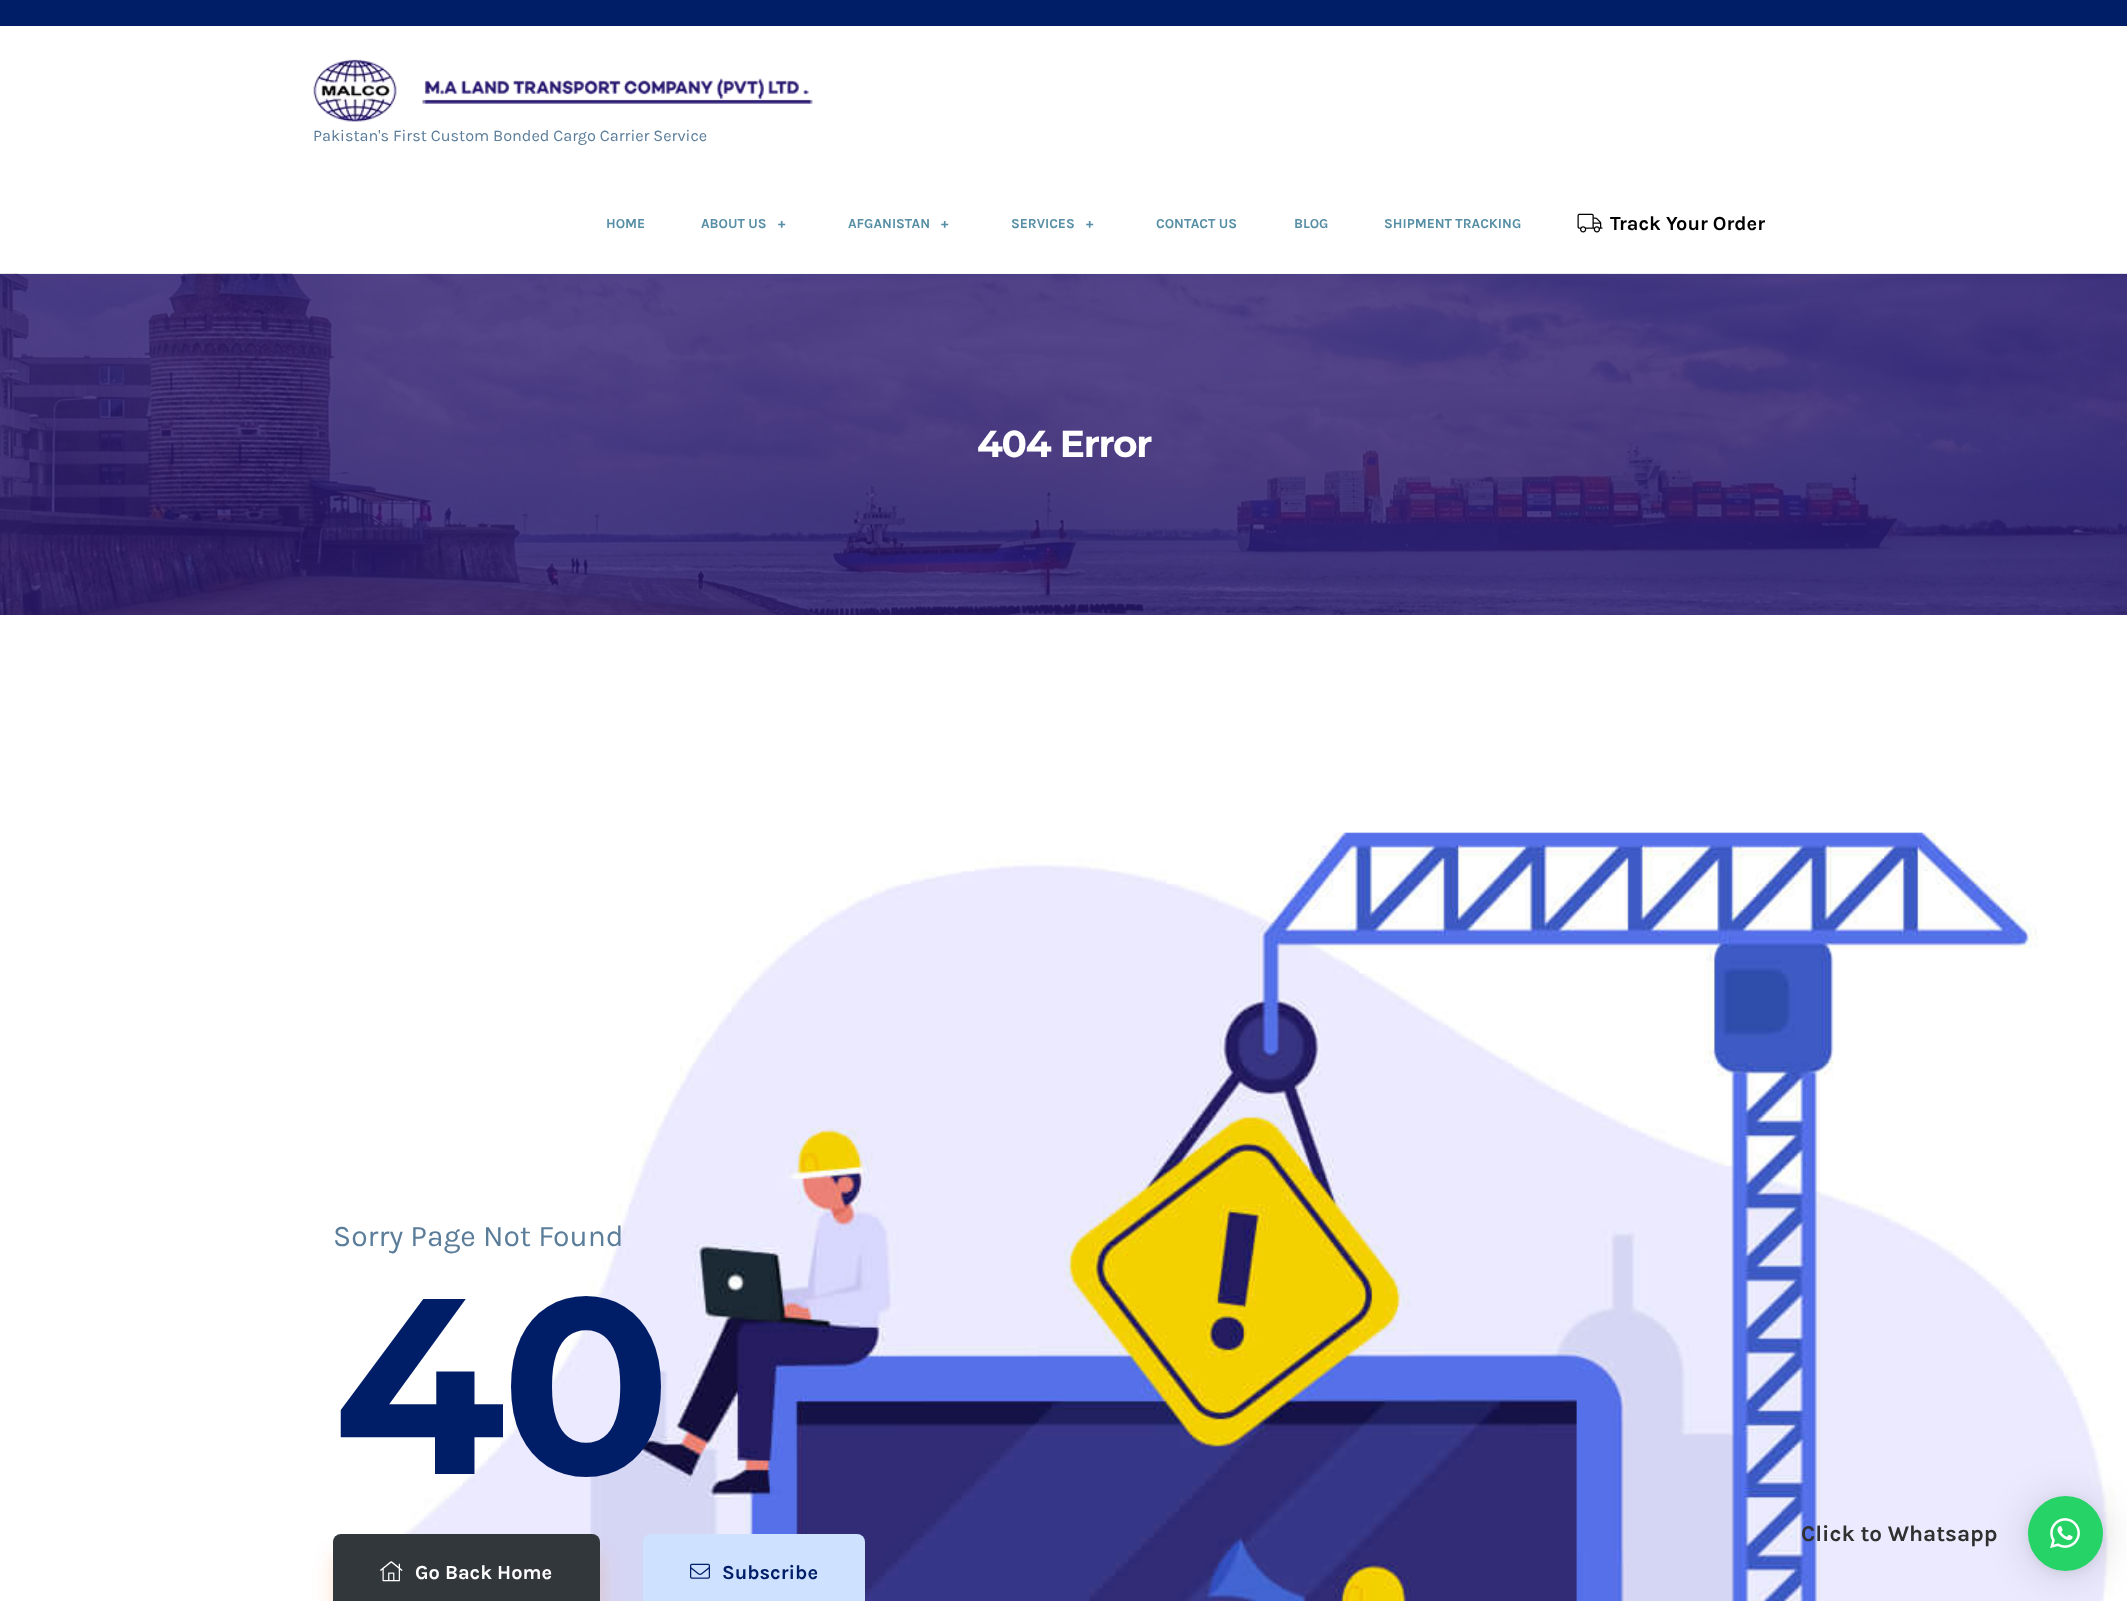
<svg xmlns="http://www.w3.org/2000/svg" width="2127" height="1601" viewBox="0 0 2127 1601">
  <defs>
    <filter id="blur1" x="-50%" y="-200%" width="200%" height="500%"><feGaussianBlur stdDeviation="10"/></filter>
    <filter id="blur2" x="-50%" y="-200%" width="200%" height="500%"><feGaussianBlur stdDeviation="20"/></filter>
    <filter id="blur3" x="-50%" y="-200%" width="200%" height="500%"><feGaussianBlur stdDeviation="4"/></filter>
  </defs>
  <rect width="100%" height="100%" fill="#ffffff"/>
  <rect x="0" y="0" width="2127" height="26" fill="#001d67"/>
  <image x="313" y="59" width="500" height="63" href="img1.png"/>
  <text x="313" y="141" font-family="Karla" font-size="16.25" fill="#5b7d9a">Pakistan's First Custom Bonded Cargo Carrier Service</text>
  <text x="606" y="228" font-family="Karla" font-size="13.75" font-weight="bold" fill="#568ea5">HOME</text>
  <text x="701" y="228" font-family="Karla" font-size="13.75" font-weight="bold" fill="#568ea5">ABOUT US</text>
  <text x="778" y="228" font-family="Karla" font-size="13.75" font-weight="bold" fill="#568ea5">+</text>
  <text x="848" y="228" font-family="Karla" font-size="13.75" font-weight="bold" fill="#568ea5">AFGANISTAN</text>
  <text x="941" y="228" font-family="Karla" font-size="13.75" font-weight="bold" fill="#568ea5">+</text>
  <text x="1011" y="228" font-family="Karla" font-size="13.75" font-weight="bold" fill="#568ea5">SERVICES</text>
  <text x="1086" y="228" font-family="Karla" font-size="13.75" font-weight="bold" fill="#568ea5">+</text>
  <text x="1156" y="228" font-family="Karla" font-size="13.75" font-weight="bold" fill="#568ea5">CONTACT US</text>
  <text x="1294" y="228" font-family="Karla" font-size="13.75" font-weight="bold" fill="#568ea5">BLOG</text>
  <text x="1384" y="228" font-family="Karla" font-size="13.75" font-weight="bold" fill="#568ea5">SHIPMENT TRACKING</text>
  <image x="1577" y="213" width="26" height="20" href="img2.png"/>
  <text x="1610" y="230" font-family="Karla" font-size="20" font-weight="bold" fill="#000000">Track Your Order</text>
  <image x="0" y="273" width="2127" height="342" href="img3.png"/>
  <text x="977" y="457" font-family="Montserrat" font-size="37.5" font-weight="bold" letter-spacing="-1.25" fill="#ffffff">404 Error</text>
  <image x="334" y="832" width="1780" height="769" href="img4.png"/>
  <text x="333" y="1246" font-family="Karla" font-size="30" fill="#5b7d9a">Sorry Page Not Found</text>
  <text x="333" y="1474" font-family="Montserrat" font-size="250" font-weight="bold" letter-spacing="-4" fill="#001d67">40</text>
  <rect x="333" y="1554" width="267" height="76" rx="8" fill="#ff5e14" fill-opacity="0.2" filter="url(#blur1)"/>
  <rect x="333" y="1534" width="267" height="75" rx="8" fill="#32373c"/>
  <image x="380" y="1561" width="23" height="21" href="img5.png"/>
  <text x="415" y="1579" font-family="Karla" font-size="20" font-weight="bold" fill="#ffffff">Go Back Home</text>
  <rect x="643" y="1534" width="222" height="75" rx="8" fill="#cee2ff"/>
  <image x="690" y="1563" width="20" height="16" href="img6.png"/>
  <text x="722" y="1579" font-family="Karla" font-size="20" font-weight="bold" fill="#001d67">Subscribe</text>
  <rect x="2028" y="1499" width="75" height="75" rx="37.5" fill="#000000" fill-opacity="0.16" filter="url(#blur2)"/>
  <rect x="2028" y="1498" width="75" height="75" rx="37.5" fill="#000000" fill-opacity="0.06" filter="url(#blur3)"/>
  <circle cx="2065.5" cy="1533.5" r="37.5" fill="#25d366"/>
  <text x="1801" y="1541" font-family="Karla" font-size="22.5" font-weight="bold" fill="#303030">Click to Whatsapp</text>
  <image x="2050" y="1518" width="30" height="31" href="img7.png"/>
</svg>
